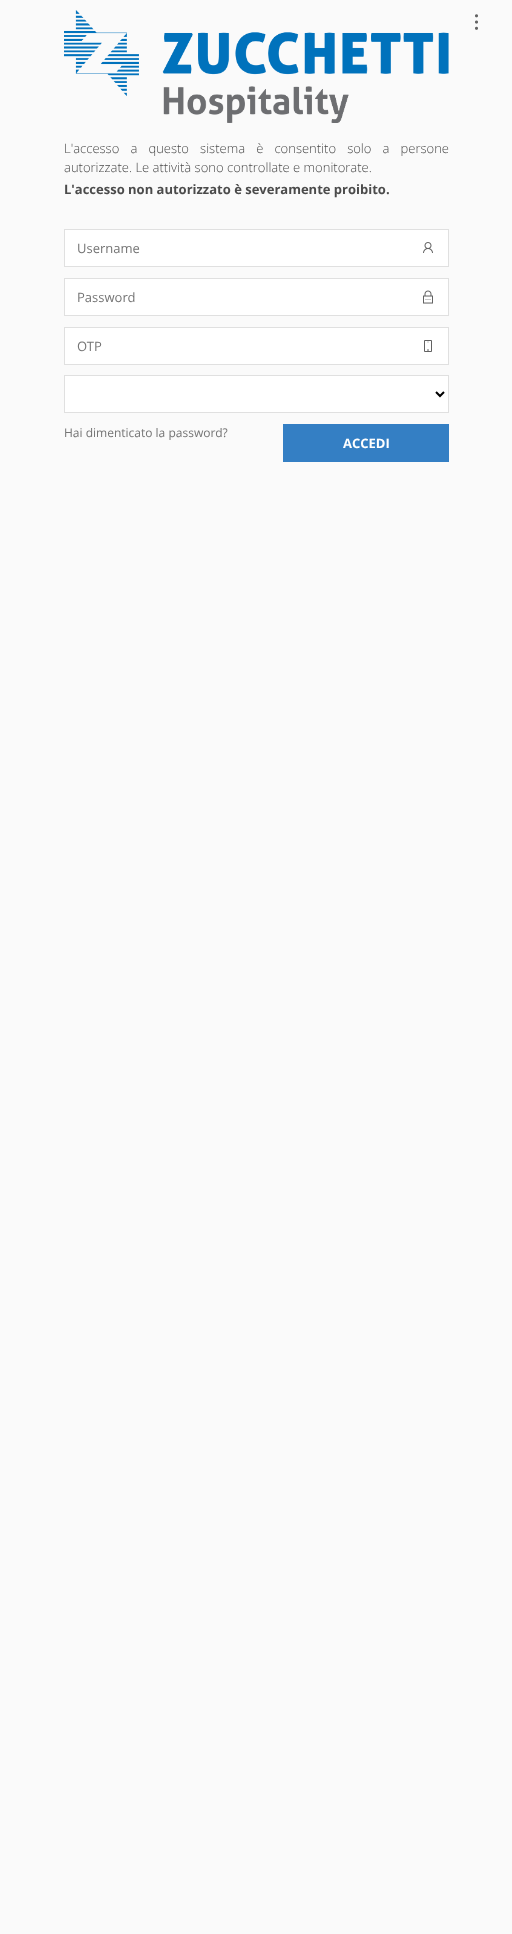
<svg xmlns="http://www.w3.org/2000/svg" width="512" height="1934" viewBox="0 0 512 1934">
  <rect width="100%" height="100%" fill="#fafafa"/>
  <image x="64" y="10" width="385" height="113" href="img1.png"/>
  <image x="475" y="14" width="3" height="16" href="img2.png"/>
  <text x="64" y="153" word-spacing="7.75" font-family="Open Sans" font-size="13" font-weight="300" fill="#4b4b4b">L'accesso a questo sistema è consentito solo a persone</text>
  <text x="64" y="172" font-family="Open Sans" font-size="13" font-weight="300" fill="#4b4b4b">autorizzate. Le attività sono controllate e monitorate.</text>
  <text x="64" y="194" font-family="Open Sans" font-size="13" font-weight="bold" fill="#4b4b4b">L'accesso non autorizzato è severamente proibito.</text>
  <rect x="64.5" y="229.5" width="384" height="37" fill="#ffffff" stroke="#e0e0e0"/>
  <text x="77" y="253" font-family="Open Sans" font-size="13" fill="#757575">Username</text>
  <image x="423" y="242" width="10" height="11" href="img3.png"/>
  <rect x="64.5" y="278.5" width="384" height="37" fill="#ffffff" stroke="#e0e0e0"/>
  <text x="77" y="302" font-family="Open Sans" font-size="13" fill="#757575">Password</text>
  <image x="423" y="290" width="10" height="14" href="img4.png"/>
  <rect x="64.5" y="327.5" width="384" height="37" fill="#ffffff" stroke="#e0e0e0"/>
  <text x="77" y="351" font-family="Open Sans" font-size="13" fill="#757575">OTP</text>
  <image x="424" y="340" width="8" height="12" href="img5.png"/>
  <rect x="64.5" y="375.5" width="384" height="37" fill="#ffffff" stroke="#e0e0e0"/>
  <path d="M436 392L440 396L444 392" fill="none" stroke="#000000" stroke-width="2"/>
  <text x="64" y="437" font-family="Open Sans" font-size="12" fill="#757575">Hai dimenticato la password?</text>
  <rect x="283" y="424" width="166" height="38" fill="#347fc4"/>
  <text x="343" y="448" font-family="Open Sans" font-size="13" font-weight="bold" fill="#ffffff">ACCEDI</text>
</svg>
